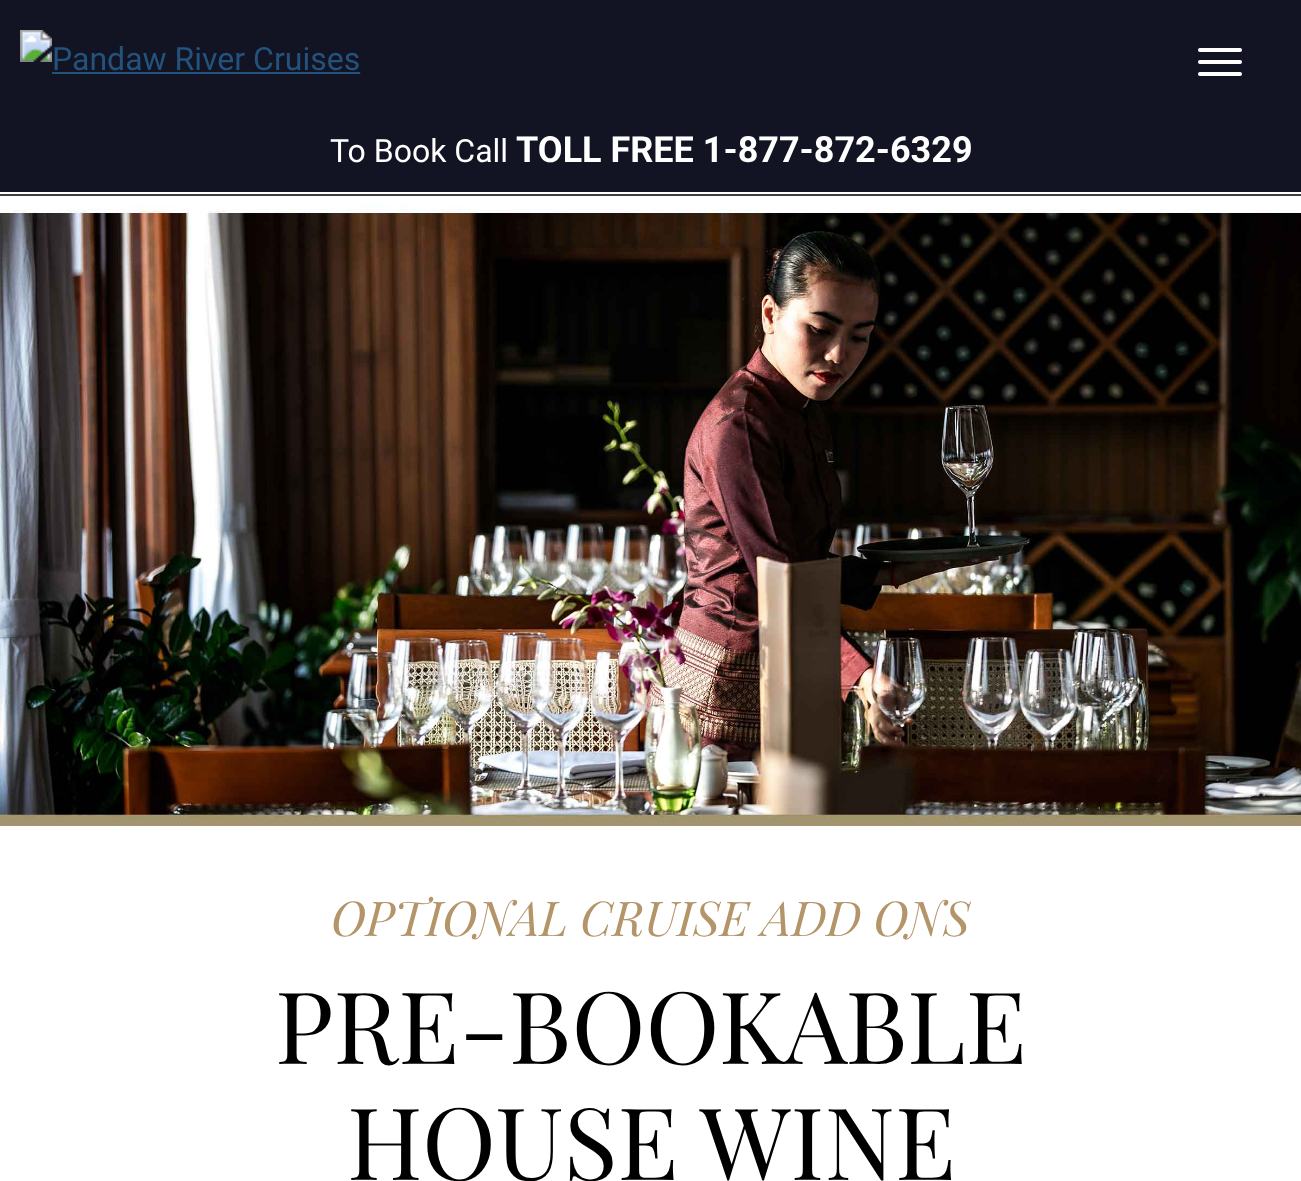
<svg xmlns="http://www.w3.org/2000/svg" width="1301" height="1181" viewBox="0 0 1301 1181">
  <rect width="100%" height="100%" fill="#ffffff"/>
  <rect x="0" y="0" width="1301" height="192" fill="#131423"/>
  <image x="20" y="30" width="341" height="44" href="img1.png"/>
  <rect x="1198" y="48" width="44" height="4" rx="2" fill="#ffffff"/>
  <rect x="1198" y="60" width="44" height="4" rx="2" fill="#ffffff"/>
  <rect x="1198" y="72" width="44" height="4" rx="2" fill="#ffffff"/>
  <text x="330" y="162" font-family="Roboto" font-size="32" fill="#ffffff">To Book Call</text>
  <text x="516" y="162" font-family="Roboto" font-size="36" font-weight="bold" fill="#ffffff">TOLL FREE 1-877-872-6329</text>
  <rect x="0" y="194" width="1301" height="2" fill="#3d3d3d"/>
  <image x="0" y="205" width="1301" height="621" href="img2.png"/>
  <text x="331" y="936" font-family="Playfair Display" font-size="48" font-style="italic" fill="#b49469">OPTIONAL CRUISE ADD ONS</text>
  <text x="275" y="1064" font-family="Playfair Display" font-size="100" fill="#000000">PRE-BOOKABLE</text>
  <text x="347" y="1180" font-family="Playfair Display" font-size="100" fill="#000000">HOUSE WINE</text>
</svg>
